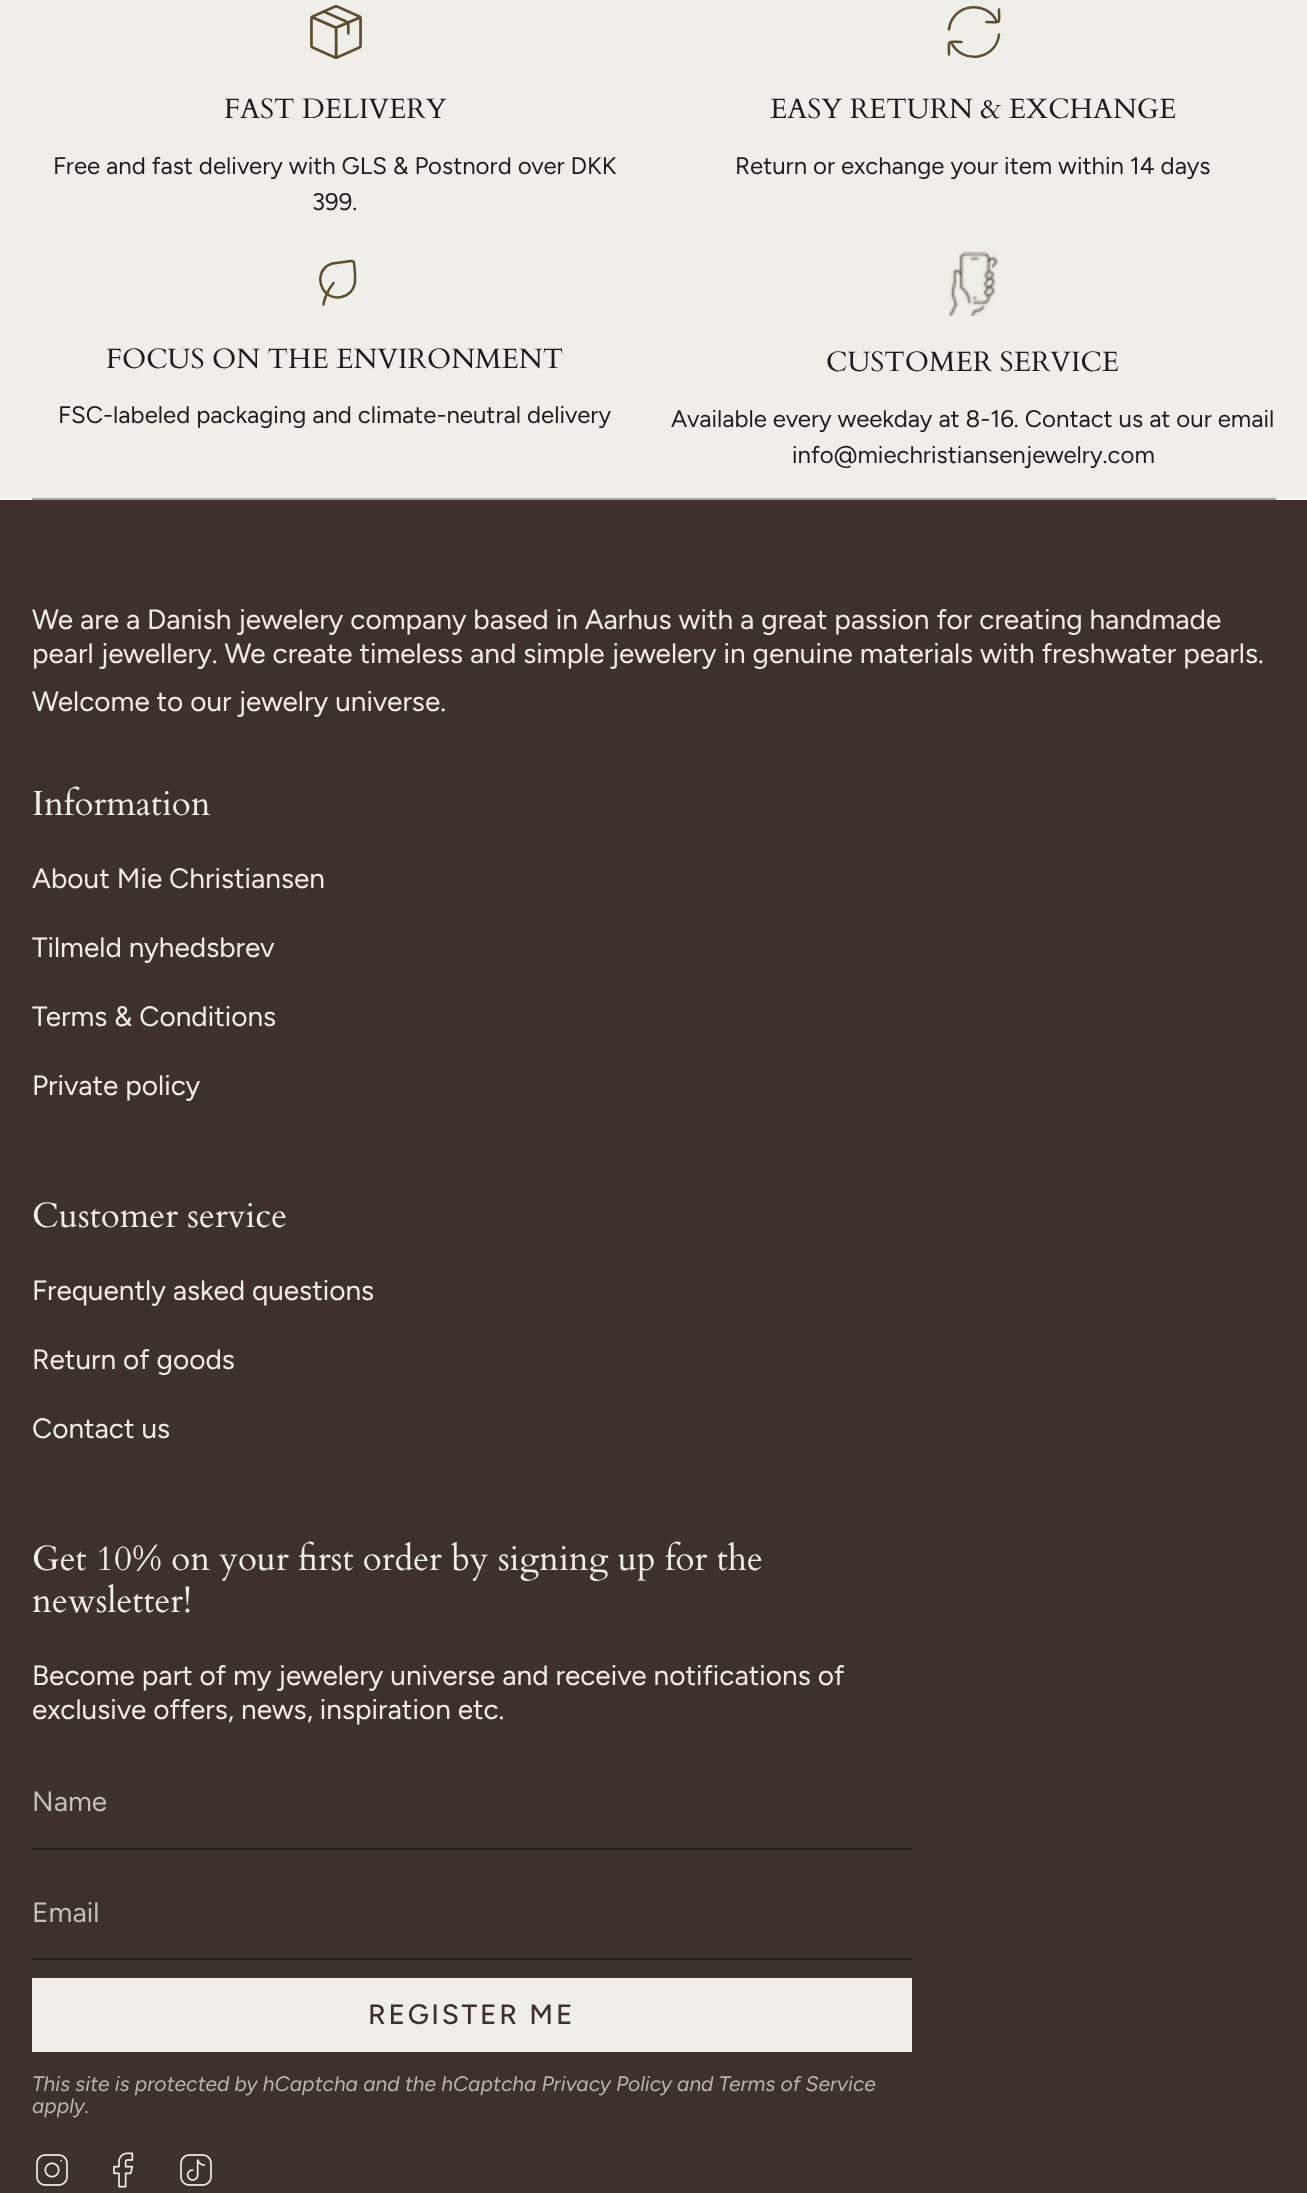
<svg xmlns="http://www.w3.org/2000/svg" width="1307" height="2193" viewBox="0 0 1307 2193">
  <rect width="100%" height="100%" fill="#f0eee8"/>
  <image x="310" y="4" width="52" height="56" href="img1.png"/>
  <text x="224" y="118" font-family="Cardo" font-size="28" fill="#1c1c1c">FAST DELIVERY</text>
  <text x="53" y="174" font-family="Figtree" font-size="24" fill="#1c1c1c">Free and fast delivery with GLS &amp; Postnord over DKK</text>
  <text x="312" y="210" font-family="Figtree" font-size="24" fill="#1c1c1c">399.</text>
  <path d="M997 22C987-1 951.5 4 949 29.5M986.5 22C1002 22 999 25 999 9.5M951 42C961.5 65 996.5 60 999 34.5M961.5 42C946.5 42 949 39 949 54.5" fill="none" stroke="#594d2e" stroke-width="2.5" stroke-linecap="round" stroke-linejoin="round"/>
  <text x="770" y="118" font-family="Cardo" font-size="28" fill="#1c1c1c">EASY RETURN &amp; EXCHANGE</text>
  <text x="735" y="174" font-family="Figtree" font-size="24" fill="#1c1c1c">Return or exchange your item within 14 days</text>
  <path d="M323.5 304.5C323.5 304.5 325 293 333.5 283M354 262.5C355 275.5 359 291.5 343 296.5C321 303.5 310.5 270 332.5 263.5L344 262C345.5 262 353.5 259.5 354 262.5Z" fill="none" stroke="#594d2e" stroke-width="2.5" stroke-linecap="round" stroke-linejoin="round"/>
  <text x="106" y="368" font-family="Cardo" font-size="28" fill="#1c1c1c">FOCUS ON THE ENVIRONMENT</text>
  <text x="58" y="423" font-family="Figtree" font-size="24" fill="#1c1c1c">FSC-labeled packaging and climate-neutral delivery</text>
  <image x="948" y="251" width="50" height="65" href="img2.png"/>
  <text x="826" y="371" font-family="Cardo" font-size="28" fill="#1c1c1c">CUSTOMER SERVICE</text>
  <text x="671" y="427" font-family="Figtree" font-size="24" fill="#1c1c1c">Available every weekday at 8-16. Contact us at our email</text>
  <text x="792" y="463" font-family="Figtree" font-size="24" fill="#1c1c1c">info@miechristiansenjewelry.com</text>
  <rect x="0" y="498" width="1307" height="2" fill="#f5f5f5"/>
  <rect x="32" y="498" width="1244" height="2" fill="#a4a4a4"/>
  <rect x="0" y="500" width="1307" height="1693" fill="#3d312d"/>
  <text x="32" y="629" font-family="Figtree" font-size="28" fill="#f0eee8">We are a Danish jewelery company based in Aarhus with a great passion for creating handmade</text>
  <text x="32" y="663" font-family="Figtree" font-size="28" fill="#f0eee8">pearl jewellery. We create timeless and simple jewelery in genuine materials with freshwater pearls.</text>
  <text x="32" y="711" font-family="Figtree" font-size="28" fill="#f0eee8">Welcome to our jewelry universe.</text>
  <text x="32" y="815" font-family="Cardo" font-size="35" fill="#f0eee8">Information</text>
  <text x="32" y="888" font-family="Figtree" font-size="28" fill="#f0eee8">About Mie Christiansen</text>
  <text x="32" y="957" font-family="Figtree" font-size="28" fill="#f0eee8">Tilmeld nyhedsbrev</text>
  <text x="32" y="1026" font-family="Figtree" font-size="28" fill="#f0eee8">Terms &amp; Conditions</text>
  <text x="32" y="1095" font-family="Figtree" font-size="28" fill="#f0eee8">Private policy</text>
  <text x="32" y="1227" font-family="Cardo" font-size="35" fill="#f0eee8">Customer service</text>
  <text x="32" y="1300" font-family="Figtree" font-size="28" fill="#f0eee8">Frequently asked questions</text>
  <text x="32" y="1369" font-family="Figtree" font-size="28" fill="#f0eee8">Return of goods</text>
  <text x="32" y="1438" font-family="Figtree" font-size="28" fill="#f0eee8">Contact us</text>
  <text x="32" y="1570" font-family="Cardo" font-size="35" fill="#f0eee8">Get 10% on your first order by signing up for the</text>
  <text x="32" y="1612" font-family="Cardo" font-size="35" fill="#f0eee8">newsletter!</text>
  <text x="32" y="1685" font-family="Figtree" font-size="28" fill="#f0eee8">Become part of my jewelery universe and receive notifications of</text>
  <text x="32" y="1719" font-family="Figtree" font-size="28" fill="#f0eee8">exclusive offers, news, inspiration etc.</text>
  <rect x="32" y="1848" width="880" height="2" fill="#212121"/>
  <text x="32" y="1811" font-family="Figtree" font-size="28" fill="#c3bfb9">Name</text>
  <rect x="32" y="1958" width="880" height="2" fill="#212121"/>
  <text x="32" y="1922" font-family="Figtree" font-size="28" fill="#c3bfb9">Email</text>
  <rect x="32" y="1978" width="880" height="74" fill="#f0eee8"/>
  <text x="368" y="2024" font-family="Figtree" font-size="28" font-weight="500" letter-spacing="2.75" fill="#3d312d">REGISTER ME</text>
  <text x="32" y="2091" font-family="Figtree" font-size="21" font-style="italic" fill="#bab5b0">This site is protected by hCaptcha and the hCaptcha Privacy Policy and Terms of Service</text>
  <text x="32" y="2113" font-family="Figtree" font-size="21" font-style="italic" fill="#bab5b0">apply.</text>
  <image x="36" y="2154" width="32" height="32" href="img3.png"/>
  <image x="113" y="2152" width="21" height="36" href="img4.png"/>
  <image x="180" y="2154" width="32" height="32" href="img5.png"/>
</svg>
